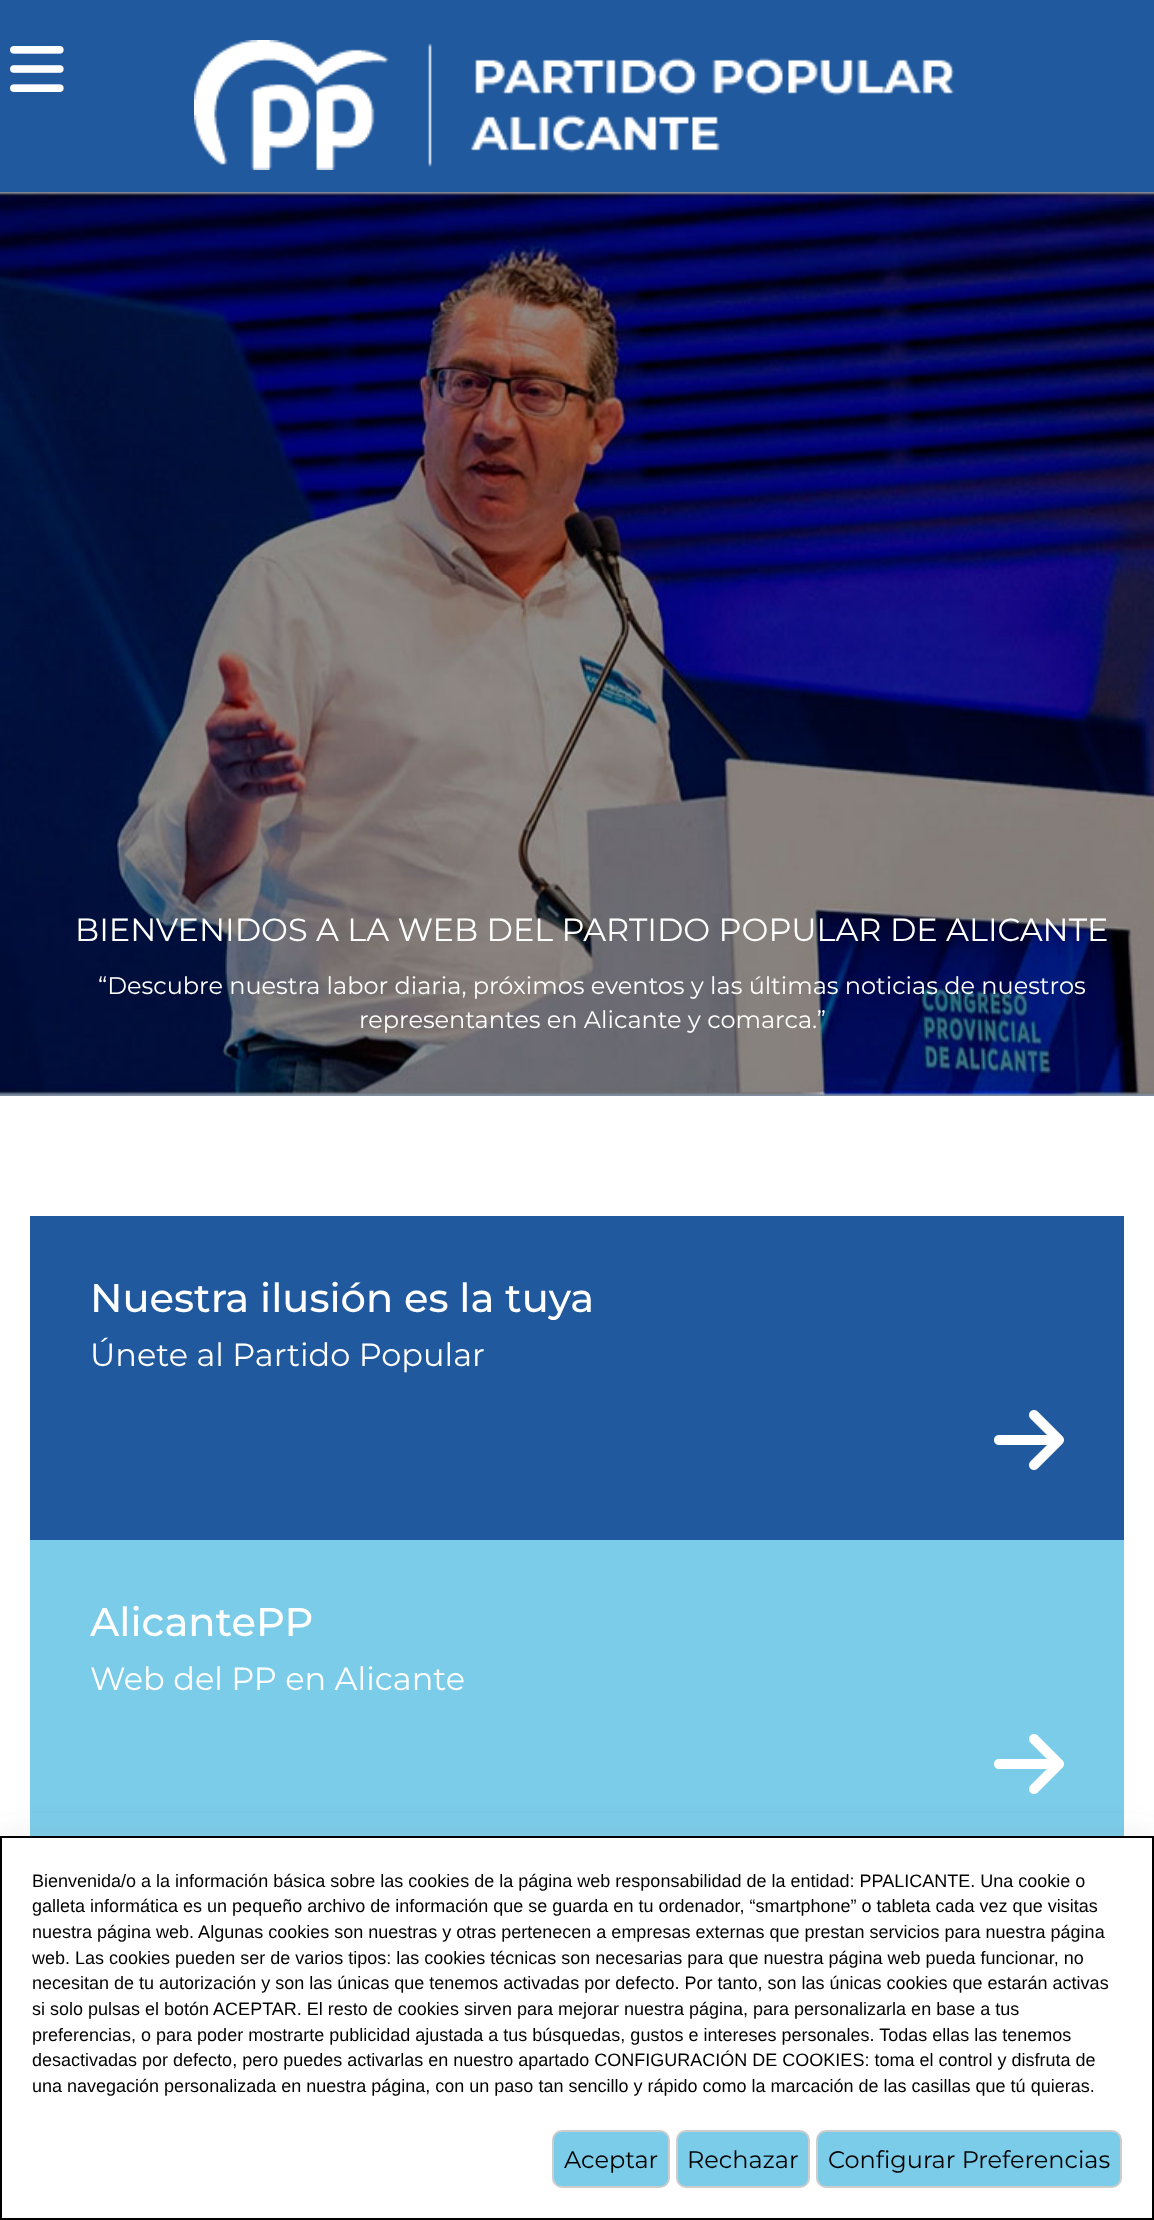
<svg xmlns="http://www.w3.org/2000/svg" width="1154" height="2220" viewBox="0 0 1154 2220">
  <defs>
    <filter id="blur1" x="-50%" y="-200%" width="200%" height="500%"><feGaussianBlur stdDeviation="15"/></filter>
  </defs>
  <rect width="100%" height="100%" fill="#ffffff"/>
  <rect x="0" y="0" width="1154" height="192" fill="#20599e"/>
  <image x="10" y="46" width="54" height="46" href="img1.png"/>
  <image x="194" y="40" width="761" height="130" href="img2.png"/>
  <rect x="0" y="1093" width="1154" height="3" fill="#8090a2"/>
  <image x="0" y="192" width="1154" height="904" href="img3.png"/>
  <text x="75" y="941" font-family="Montserrat" font-size="32" fill="#ffffff">BIENVENIDOS A LA WEB DEL PARTIDO POPULAR DE ALICANTE</text>
  <text x="98" y="994" font-family="Montserrat" font-size="24" fill="#ffffff">“Descubre nuestra labor diaria, próximos eventos y las últimas noticias de nuestros</text>
  <text x="359" y="1028" font-family="Montserrat" font-size="24" fill="#ffffff">representantes en Alicante y comarca.”</text>
  <rect x="30" y="1216" width="1094" height="324" fill="#20599e"/>
  <text x="90" y="1312" font-family="Montserrat" font-size="40" font-weight="500" fill="#ffffff">Nuestra ilusión es la tuya</text>
  <text x="90" y="1366" font-family="Montserrat" font-size="32" fill="#ffffff">Únete al Partido Popular</text>
  <image x="994" y="1410" width="70" height="60" href="img4.png"/>
  <rect x="30" y="1540" width="1094" height="296" fill="#7bcce9"/>
  <text x="90" y="1636" font-family="Montserrat" font-size="40" font-weight="500" fill="#ffffff">AlicantePP</text>
  <text x="90" y="1690" font-family="Montserrat" font-size="32" fill="#ffffff">Web del PP en Alicante</text>
  <image x="994" y="1734" width="70" height="60" href="img5.png"/>
  <rect x="0" y="1836" width="1154" height="384" fill="#828486" fill-opacity="0.15" filter="url(#blur1)"/>
  <rect x="1" y="1837" width="1152" height="382" fill="#ffffff" stroke="#000000" stroke-width="2"/>
  <text x="32" y="1887" font-family="Liberation Sans" font-size="18" fill="#000000">Bienvenida/o a la información básica sobre las cookies de la página web responsabilidad de la entidad: PPALICANTE. Una cookie o</text>
  <text x="32" y="1912" font-family="Liberation Sans" font-size="18" fill="#000000">galleta informática es un pequeño archivo de información que se guarda en tu ordenador, “smartphone” o tableta cada vez que visitas</text>
  <text x="32" y="1938" font-family="Liberation Sans" font-size="18" fill="#000000">nuestra página web. Algunas cookies son nuestras y otras pertenecen a empresas externas que prestan servicios para nuestra página</text>
  <text x="32" y="1964" font-family="Liberation Sans" font-size="18" fill="#000000">web. Las cookies pueden ser de varios tipos: las cookies técnicas son necesarias para que nuestra página web pueda funcionar, no</text>
  <text x="32" y="1989" font-family="Liberation Sans" font-size="18" fill="#000000">necesitan de tu autorización y son las únicas que tenemos activadas por defecto. Por tanto, son las únicas cookies que estarán activas</text>
  <text x="32" y="2015" font-family="Liberation Sans" font-size="18" fill="#000000">si solo pulsas el botón ACEPTAR. El resto de cookies sirven para mejorar nuestra página, para personalizarla en base a tus</text>
  <text x="32" y="2041" font-family="Liberation Sans" font-size="18" fill="#000000">preferencias, o para poder mostrarte publicidad ajustada a tus búsquedas, gustos e intereses personales. Todas ellas las tenemos</text>
  <text x="32" y="2066" font-family="Liberation Sans" font-size="18" fill="#000000">desactivadas por defecto, pero puedes activarlas en nuestro apartado CONFIGURACIÓN DE COOKIES: toma el control y disfruta de</text>
  <text x="32" y="2092" font-family="Liberation Sans" font-size="18" fill="#000000">una navegación personalizada en nuestra página, con un paso tan sencillo y rápido como la marcación de las casillas que tú quieras.</text>
  <rect x="553" y="2131" width="116" height="56" rx="9" fill="#7bcce9" stroke="#cccccc" stroke-width="2"/>
  <text x="564" y="2168" font-family="Montserrat" font-size="24" fill="#000000">Aceptar</text>
  <rect x="677" y="2131" width="132" height="56" rx="9" fill="#7bcce9" stroke="#cccccc" stroke-width="2"/>
  <text x="687" y="2168" font-family="Montserrat" font-size="24" fill="#000000">Rechazar</text>
  <rect x="817" y="2131" width="304" height="56" rx="9" fill="#7bcce9" stroke="#cccccc" stroke-width="2"/>
  <text x="828" y="2168" font-family="Montserrat" font-size="24" fill="#000000">Configurar Preferencias</text>
</svg>
